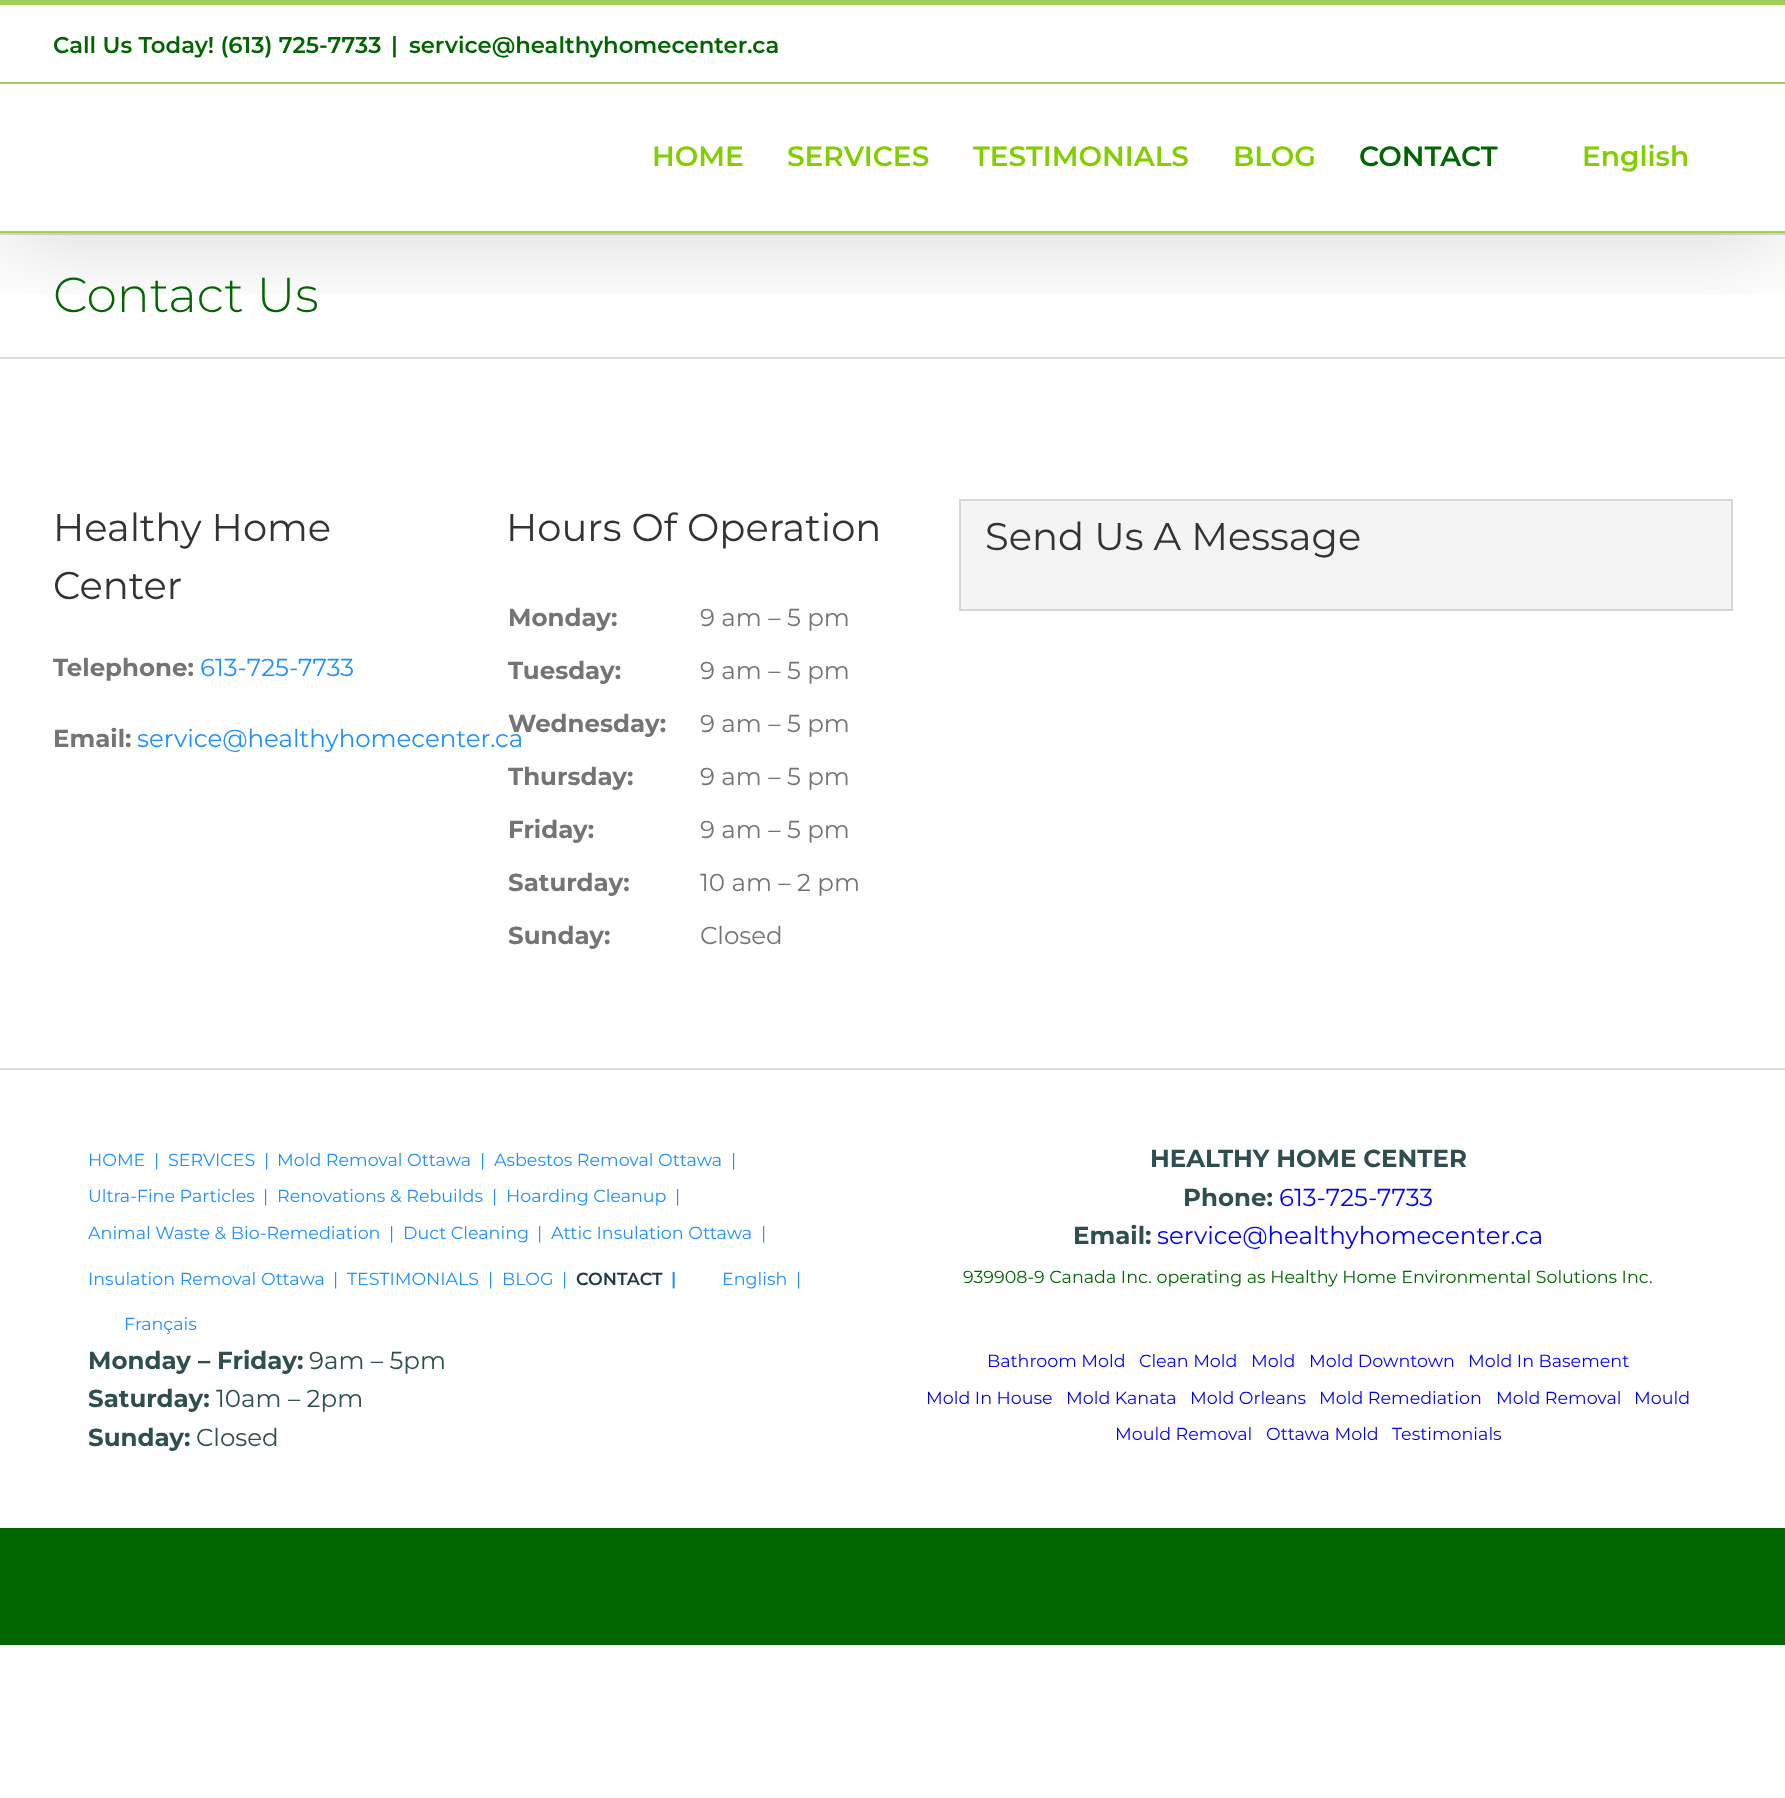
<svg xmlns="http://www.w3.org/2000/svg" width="1785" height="1798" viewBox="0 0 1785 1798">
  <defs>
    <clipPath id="clip1"><rect x="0" y="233" width="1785" height="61"/></clipPath>
    <filter id="blur1" x="-50%" y="-200%" width="200%" height="500%"><feGaussianBlur stdDeviation="44"/></filter>
  </defs>
  <rect width="100%" height="100%" fill="#ffffff"/>
  <rect x="0" y="233" width="1785" height="2" fill="#dddddd"/>
  <rect x="0" y="357" width="1785" height="2" fill="#dddddd"/>
  <g clip-path="url(#clip1)">
    <rect x="4" y="21" width="1778" height="226" fill="#000000" fill-opacity="0.14" filter="url(#blur1)"/>
  </g>
  <rect x="0" y="0" width="1785" height="5" fill="#a0ce5b"/>
  <rect x="0" y="82" width="1785" height="2" fill="#a0ce5b"/>
  <text x="53" y="53" font-family="Montserrat" font-size="22.75" font-weight="600" fill="#006600">Call Us Today! (613) 725-7733</text>
  <text x="391" y="53" font-family="Montserrat" font-size="22.75" font-weight="600" fill="#006600">|</text>
  <text x="409" y="53" font-family="Montserrat" font-size="22.75" font-weight="600" fill="#006600">service@healthyhomecenter.ca</text>
  <rect x="0" y="231" width="1785" height="2" fill="#a0ce5b"/>
  <text x="652" y="166" font-family="Montserrat" font-size="28" font-weight="600" fill="#82ce00">HOME</text>
  <text x="787" y="166" font-family="Montserrat" font-size="28" font-weight="600" fill="#82ce00">SERVICES</text>
  <text x="973" y="166" font-family="Montserrat" font-size="28" font-weight="600" fill="#82ce00">TESTIMONIALS</text>
  <text x="1233" y="166" font-family="Montserrat" font-size="28" font-weight="600" fill="#82ce00">BLOG</text>
  <text x="1359" y="166" font-family="Montserrat" font-size="28" font-weight="600" fill="#006600">CONTACT</text>
  <text x="1582" y="166" font-family="Montserrat" font-size="28" font-weight="600" fill="#82ce00">English</text>
  <text x="53" y="312" font-family="Montserrat" font-size="49" font-weight="300" fill="#006600">Contact Us</text>
  <text x="53" y="541" font-family="Montserrat" font-size="38.5" fill="#333333">Healthy Home</text>
  <text x="53" y="599" font-family="Montserrat" font-size="38.5" fill="#333333">Center</text>
  <text x="53" y="676" font-family="Montserrat" font-size="24.5" font-weight="bold" fill="#747474">Telephone:</text>
  <text x="200" y="676" font-family="Montserrat" font-size="24.5" fill="#1e90ff">613-725-7733</text>
  <text x="53" y="747" font-family="Montserrat" font-size="24.5" font-weight="bold" fill="#747474">Email:</text>
  <text x="137" y="747" font-family="Montserrat" font-size="24.5" fill="#1e90ff">service@healthyhomecenter.ca</text>
  <text x="506" y="541" font-family="Montserrat" font-size="38.5" fill="#333333">Hours Of Operation</text>
  <text x="508" y="626" font-family="Montserrat" font-size="24.5" font-weight="bold" fill="#747474">Monday:</text>
  <text x="700" y="626" font-family="Montserrat" font-size="24.5" fill="#747474">9 am – 5 pm</text>
  <text x="508" y="679" font-family="Montserrat" font-size="24.5" font-weight="bold" fill="#747474">Tuesday:</text>
  <text x="700" y="679" font-family="Montserrat" font-size="24.5" fill="#747474">9 am – 5 pm</text>
  <text x="508" y="732" font-family="Montserrat" font-size="24.5" font-weight="bold" fill="#747474">Wednesday:</text>
  <text x="700" y="732" font-family="Montserrat" font-size="24.5" fill="#747474">9 am – 5 pm</text>
  <text x="508" y="785" font-family="Montserrat" font-size="24.5" font-weight="bold" fill="#747474">Thursday:</text>
  <text x="700" y="785" font-family="Montserrat" font-size="24.5" fill="#747474">9 am – 5 pm</text>
  <text x="508" y="838" font-family="Montserrat" font-size="24.5" font-weight="bold" fill="#747474">Friday:</text>
  <text x="700" y="838" font-family="Montserrat" font-size="24.5" fill="#747474">9 am – 5 pm</text>
  <text x="508" y="891" font-family="Montserrat" font-size="24.5" font-weight="bold" fill="#747474">Saturday:</text>
  <text x="700" y="891" font-family="Montserrat" font-size="24.5" fill="#747474">10 am – 2 pm</text>
  <text x="508" y="944" font-family="Montserrat" font-size="24.5" font-weight="bold" fill="#747474">Sunday:</text>
  <text x="700" y="944" font-family="Montserrat" font-size="24.5" fill="#747474">Closed</text>
  <rect x="960" y="500" width="772" height="110" fill="#f4f4f4" stroke="#d6d6d6" stroke-width="2"/>
  <text x="985" y="550" font-family="Montserrat" font-size="38.5" fill="#333333">Send Us A Message</text>
  <rect x="0" y="1068" width="1785" height="2" fill="#dddddd"/>
  <text x="88" y="1166" font-family="Montserrat" font-size="17.5" fill="#1e90ff">HOME</text>
  <text x="154" y="1166" font-family="Montserrat" font-size="17.5" fill="#1e90ff">|</text>
  <text x="168" y="1166" font-family="Montserrat" font-size="17.5" fill="#1e90ff">SERVICES</text>
  <text x="264" y="1166" font-family="Montserrat" font-size="17.5" fill="#1e90ff">|</text>
  <text x="277" y="1166" font-family="Montserrat" font-size="17.5" fill="#1e90ff">Mold Removal Ottawa</text>
  <text x="480" y="1166" font-family="Montserrat" font-size="17.5" fill="#1e90ff">|</text>
  <text x="494" y="1166" font-family="Montserrat" font-size="17.5" fill="#1e90ff">Asbestos Removal Ottawa</text>
  <text x="731" y="1166" font-family="Montserrat" font-size="17.5" fill="#1e90ff">|</text>
  <text x="88" y="1202" font-family="Montserrat" font-size="17.5" fill="#1e90ff">Ultra-Fine Particles</text>
  <text x="263" y="1202" font-family="Montserrat" font-size="17.5" fill="#1e90ff">|</text>
  <text x="277" y="1202" font-family="Montserrat" font-size="17.5" fill="#1e90ff">Renovations &amp; Rebuilds</text>
  <text x="492" y="1202" font-family="Montserrat" font-size="17.5" fill="#1e90ff">|</text>
  <text x="506" y="1202" font-family="Montserrat" font-size="17.5" fill="#1e90ff">Hoarding Cleanup</text>
  <text x="675" y="1202" font-family="Montserrat" font-size="17.5" fill="#1e90ff">|</text>
  <text x="88" y="1239" font-family="Montserrat" font-size="17.5" fill="#1e90ff">Animal Waste &amp; Bio-Remediation</text>
  <text x="389" y="1239" font-family="Montserrat" font-size="17.5" fill="#1e90ff">|</text>
  <text x="403" y="1239" font-family="Montserrat" font-size="17.5" fill="#1e90ff">Duct Cleaning</text>
  <text x="537" y="1239" font-family="Montserrat" font-size="17.5" fill="#1e90ff">|</text>
  <text x="551" y="1239" font-family="Montserrat" font-size="17.5" fill="#1e90ff">Attic Insulation Ottawa</text>
  <text x="761" y="1239" font-family="Montserrat" font-size="17.5" fill="#1e90ff">|</text>
  <text x="88" y="1285" font-family="Montserrat" font-size="17.5" fill="#1e90ff">Insulation Removal Ottawa</text>
  <text x="333" y="1285" font-family="Montserrat" font-size="17.5" fill="#1e90ff">|</text>
  <text x="347" y="1285" font-family="Montserrat" font-size="17.5" fill="#1e90ff">TESTIMONIALS</text>
  <text x="488" y="1285" font-family="Montserrat" font-size="17.5" fill="#1e90ff">|</text>
  <text x="502" y="1285" font-family="Montserrat" font-size="17.5" fill="#1e90ff">BLOG</text>
  <text x="562" y="1285" font-family="Montserrat" font-size="17.5" fill="#1e90ff">|</text>
  <text x="576" y="1285" font-family="Montserrat" font-size="17.5" font-weight="600" fill="#1d384c">CONTACT</text>
  <text x="671" y="1285" font-family="Montserrat" font-size="17.5" font-weight="600" fill="#1e90ff">|</text>
  <text x="722" y="1285" font-family="Montserrat" font-size="17.5" fill="#1e90ff">English</text>
  <text x="796" y="1285" font-family="Montserrat" font-size="17.5" fill="#1e90ff">|</text>
  <text x="124" y="1330" font-family="Montserrat" font-size="17.5" fill="#1e90ff">Français</text>
  <text x="1150" y="1167" font-family="Montserrat" font-size="24.5" font-weight="bold" fill="#2f4f4f">HEALTHY HOME CENTER</text>
  <text x="1183" y="1206" font-family="Montserrat" font-size="24.5" font-weight="bold" fill="#2f4f4f">Phone:</text>
  <text x="1279" y="1206" font-family="Montserrat" font-size="24.5" fill="#0000ff">613-725-7733</text>
  <text x="1073" y="1244" font-family="Montserrat" font-size="24.5" font-weight="bold" fill="#2f4f4f">Email:</text>
  <text x="1157" y="1244" font-family="Montserrat" font-size="24.5" fill="#0000ff">service@healthyhomecenter.ca</text>
  <text x="963" y="1283" font-family="Montserrat" font-size="17.5" fill="#006600">939908-9 Canada Inc. operating as Healthy Home Environmental Solutions Inc.</text>
  <text x="88" y="1369" font-family="Montserrat" font-size="24.5" font-weight="bold" fill="#2f4f4f">Monday – Friday:</text>
  <text x="309" y="1369" font-family="Montserrat" font-size="24.5" fill="#2f4f4f">9am – 5pm</text>
  <text x="88" y="1407" font-family="Montserrat" font-size="24.5" font-weight="bold" fill="#2f4f4f">Saturday:</text>
  <text x="216" y="1407" font-family="Montserrat" font-size="24.5" fill="#2f4f4f">10am – 2pm</text>
  <text x="88" y="1446" font-family="Montserrat" font-size="24.5" font-weight="bold" fill="#2f4f4f">Sunday:</text>
  <text x="196" y="1446" font-family="Montserrat" font-size="24.5" fill="#2f4f4f">Closed</text>
  <text x="987" y="1367" font-family="Montserrat" font-size="17.5" fill="#0000ff">Bathroom Mold</text>
  <text x="1139" y="1367" font-family="Montserrat" font-size="17.5" fill="#0000ff">Clean Mold</text>
  <text x="1251" y="1367" font-family="Montserrat" font-size="17.5" fill="#0000ff">Mold</text>
  <text x="1309" y="1367" font-family="Montserrat" font-size="17.5" fill="#0000ff">Mold Downtown</text>
  <text x="1468" y="1367" font-family="Montserrat" font-size="17.5" fill="#0000ff">Mold In Basement</text>
  <text x="926" y="1404" font-family="Montserrat" font-size="17.5" fill="#0000ff">Mold In House</text>
  <text x="1066" y="1404" font-family="Montserrat" font-size="17.5" fill="#0000ff">Mold Kanata</text>
  <text x="1190" y="1404" font-family="Montserrat" font-size="17.5" fill="#0000ff">Mold Orleans</text>
  <text x="1319" y="1404" font-family="Montserrat" font-size="17.5" fill="#0000ff">Mold Remediation</text>
  <text x="1496" y="1404" font-family="Montserrat" font-size="17.5" fill="#0000ff">Mold Removal</text>
  <text x="1634" y="1404" font-family="Montserrat" font-size="17.5" fill="#0000ff">Mould</text>
  <text x="1115" y="1440" font-family="Montserrat" font-size="17.5" fill="#0000ff">Mould Removal</text>
  <text x="1266" y="1440" font-family="Montserrat" font-size="17.5" fill="#0000ff">Ottawa Mold</text>
  <text x="1392" y="1440" font-family="Montserrat" font-size="17.5" fill="#0000ff">Testimonials</text>
  <rect x="0" y="1528" width="1785" height="117" fill="#006600"/>
</svg>
